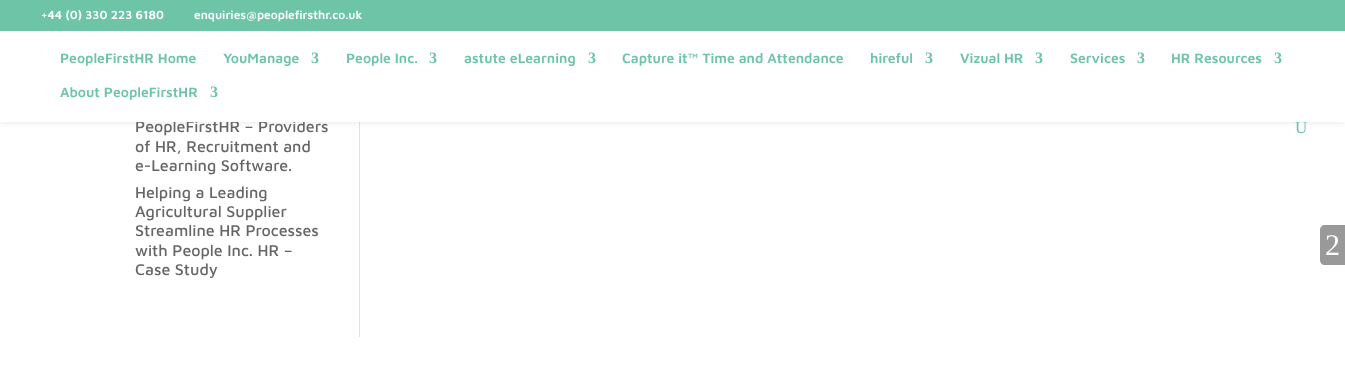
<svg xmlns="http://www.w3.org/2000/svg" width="1345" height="390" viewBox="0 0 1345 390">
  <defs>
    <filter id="blur1" x="-50%" y="-200%" width="200%" height="500%"><feGaussianBlur stdDeviation="3.5"/></filter>
  </defs>
  <rect width="100%" height="100%" fill="#ffffff"/>
  <rect x="359" y="122" width="1" height="215" fill="#e2e2e2"/>
  <rect x="0" y="31" width="1345" height="91" fill="#000000" fill-opacity="0.1" filter="url(#blur1)"/>
  <rect x="0" y="0" width="1345" height="31" fill="#6ec4a7"/>
  <text x="41" y="19" font-family="Maven Pro" font-size="12" font-weight="600" fill="#ffffff">+44 (0) 330 223 6180</text>
  <text x="194" y="19" font-family="Maven Pro" font-size="12" font-weight="600" fill="#ffffff">enquiries@peoplefirsthr.co.uk</text>
  <text x="135" y="132" font-family="Maven Pro" font-size="16" font-weight="500" fill="#666666">PeopleFirstHR – Providers</text>
  <rect x="0" y="31" width="1345" height="91" fill="#ffffff"/>
  <text x="60" y="63" font-family="Maven Pro" font-size="14" font-weight="600" fill="#6ec4a7">PeopleFirstHR Home</text>
  <text x="223" y="63" font-family="Maven Pro" font-size="14" font-weight="600" fill="#6ec4a7">YouManage</text>
  <text x="311" y="63" font-family="Liberation Serif" font-size="16" font-weight="bold" fill="#6ec4a7">3</text>
  <text x="346" y="63" font-family="Maven Pro" font-size="14" font-weight="600" fill="#6ec4a7">People Inc.</text>
  <text x="429" y="63" font-family="Liberation Serif" font-size="16" font-weight="bold" fill="#6ec4a7">3</text>
  <text x="464" y="63" font-family="Maven Pro" font-size="14" font-weight="600" fill="#6ec4a7">astute eLearning</text>
  <text x="588" y="63" font-family="Liberation Serif" font-size="16" font-weight="bold" fill="#6ec4a7">3</text>
  <text x="622" y="63" font-family="Maven Pro" font-size="14" font-weight="600" fill="#6ec4a7">Capture it™ Time and Attendance</text>
  <text x="870" y="63" font-family="Maven Pro" font-size="14" font-weight="600" fill="#6ec4a7">hireful</text>
  <text x="925" y="63" font-family="Liberation Serif" font-size="16" font-weight="bold" fill="#6ec4a7">3</text>
  <text x="960" y="63" font-family="Maven Pro" font-size="14" font-weight="600" fill="#6ec4a7">Vizual HR</text>
  <text x="1035" y="63" font-family="Liberation Serif" font-size="16" font-weight="bold" fill="#6ec4a7">3</text>
  <text x="1070" y="63" font-family="Maven Pro" font-size="14" font-weight="600" fill="#6ec4a7">Services</text>
  <text x="1137" y="63" font-family="Liberation Serif" font-size="16" font-weight="bold" fill="#6ec4a7">3</text>
  <text x="1171" y="63" font-family="Maven Pro" font-size="14" font-weight="600" fill="#6ec4a7">HR Resources</text>
  <text x="1274" y="63" font-family="Liberation Serif" font-size="16" font-weight="bold" fill="#6ec4a7">3</text>
  <text x="60" y="97" font-family="Maven Pro" font-size="14" font-weight="600" fill="#6ec4a7">About PeopleFirstHR</text>
  <text x="210" y="97" font-family="Liberation Serif" font-size="16" font-weight="bold" fill="#6ec4a7">3</text>
  <text x="1295" y="133" font-family="Liberation Serif" font-size="17" fill="#6ec4a7">U</text>
  <text x="135" y="152" font-family="Maven Pro" font-size="16" font-weight="500" fill="#666666">of HR, Recruitment and</text>
  <text x="135" y="171" font-family="Maven Pro" font-size="16" font-weight="500" fill="#666666">e-Learning Software.</text>
  <text x="135" y="198" font-family="Maven Pro" font-size="16" font-weight="500" fill="#666666">Helping a Leading</text>
  <text x="135" y="217" font-family="Maven Pro" font-size="16" font-weight="500" fill="#666666">Agricultural Supplier</text>
  <text x="135" y="236" font-family="Maven Pro" font-size="16" font-weight="500" fill="#666666">Streamline HR Processes</text>
  <text x="135" y="256" font-family="Maven Pro" font-size="16" font-weight="500" fill="#666666">with People Inc. HR –</text>
  <text x="135" y="275" font-family="Maven Pro" font-size="16" font-weight="500" fill="#666666">Case Study</text>
  <path d="M1325 225H1345V265H1325C1322 265 1320 263 1320 260V230C1320 227 1322 225 1325 225Z" fill="#999999"/>
  <text x="1325" y="255" font-family="Liberation Serif" font-size="30" fill="#ffffff">2</text>
</svg>
